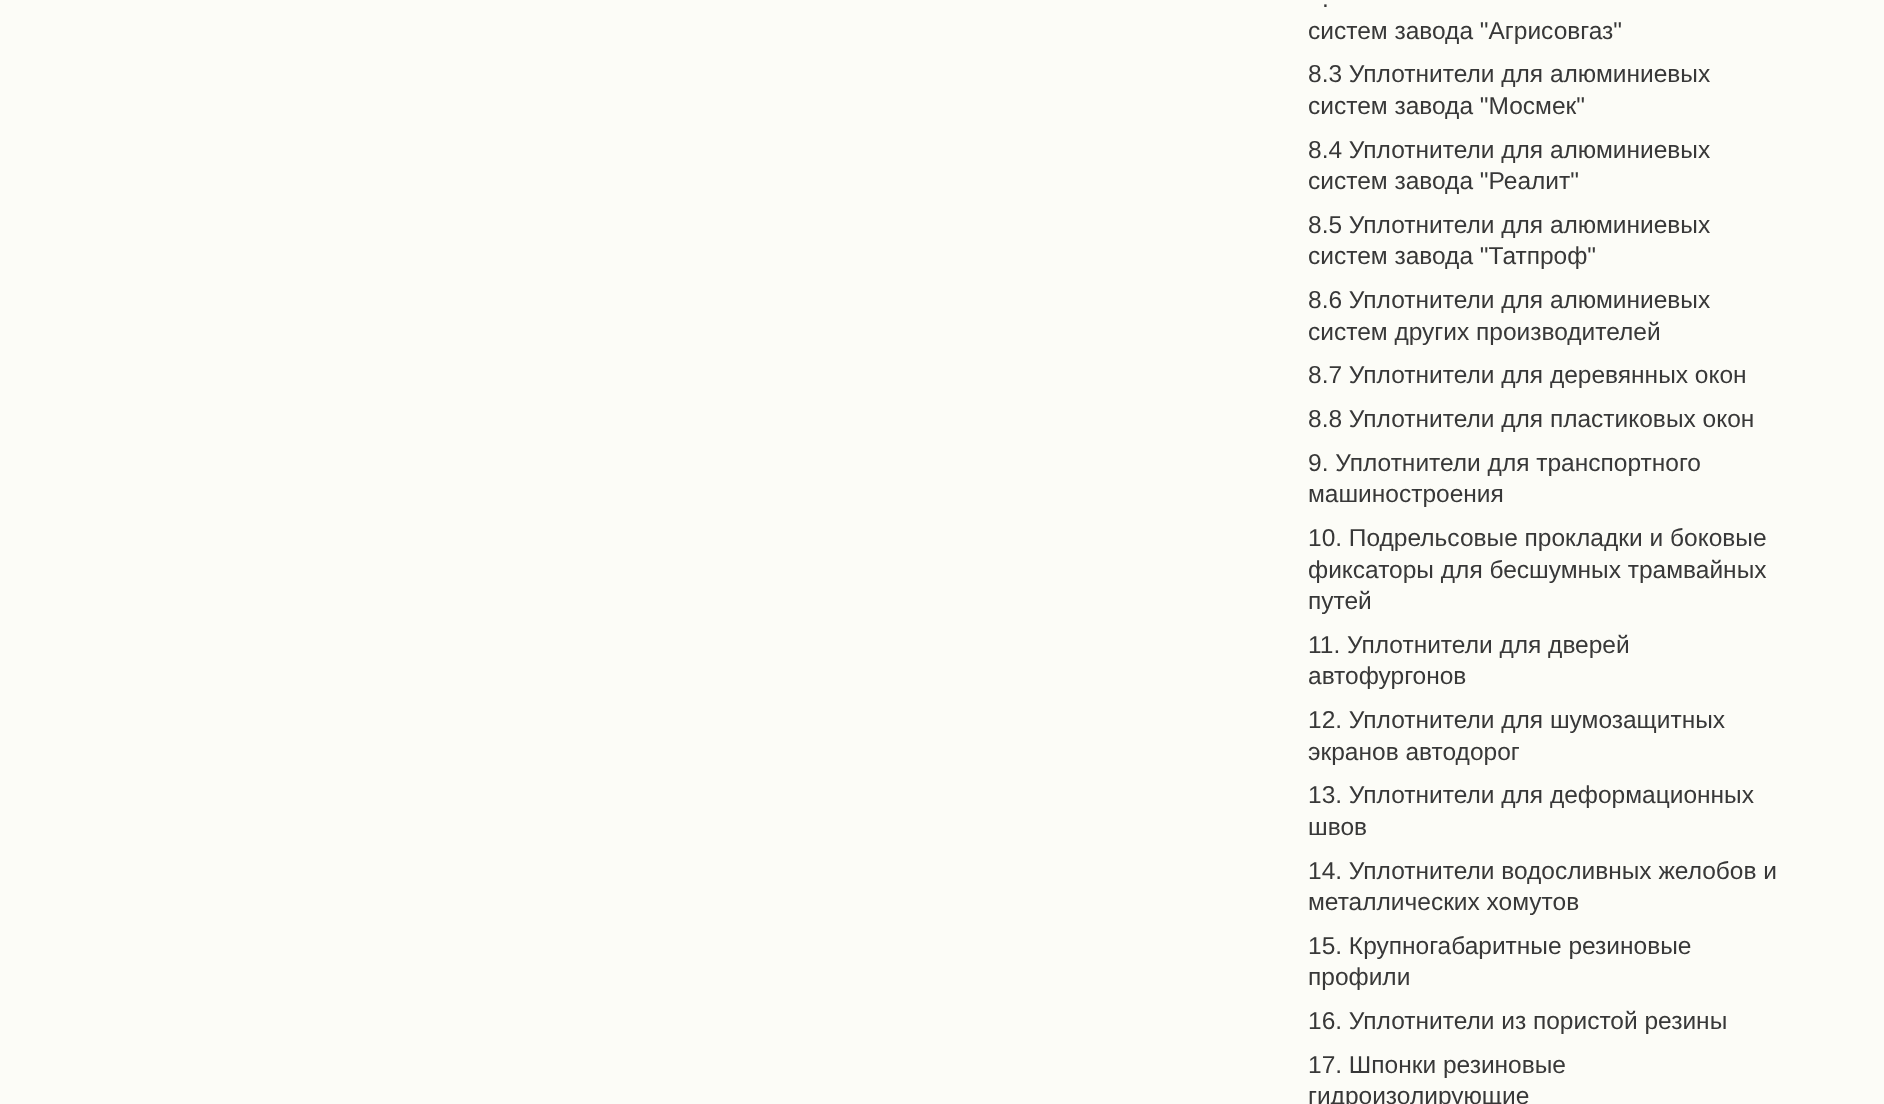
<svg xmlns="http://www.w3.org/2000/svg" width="1884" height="1104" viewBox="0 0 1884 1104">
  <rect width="100%" height="100%" fill="#fcfcf7"/>
  <text x="1322" y="7" font-family="Liberation Sans" font-size="24.5" fill="#383838">.</text>
  <text x="1308" y="39" font-family="Liberation Sans" font-size="24.5" fill="#383838">систем завода "Агрисовгаз"</text>
  <text x="1308" y="82" font-family="Liberation Sans" font-size="24.5" fill="#383838">8.3 Уплотнители для алюминиевых</text>
  <text x="1308" y="114" font-family="Liberation Sans" font-size="24.5" fill="#383838">систем завода "Мосмек"</text>
  <text x="1308" y="158" font-family="Liberation Sans" font-size="24.5" fill="#383838">8.4 Уплотнители для алюминиевых</text>
  <text x="1308" y="189" font-family="Liberation Sans" font-size="24.5" fill="#383838">систем завода "Реалит"</text>
  <text x="1308" y="233" font-family="Liberation Sans" font-size="24.5" fill="#383838">8.5 Уплотнители для алюминиевых</text>
  <text x="1308" y="264" font-family="Liberation Sans" font-size="24.5" fill="#383838">систем завода "Татпроф"</text>
  <text x="1308" y="308" font-family="Liberation Sans" font-size="24.5" fill="#383838">8.6 Уплотнители для алюминиевых</text>
  <text x="1308" y="340" font-family="Liberation Sans" font-size="24.5" fill="#383838">систем других производителей</text>
  <text x="1308" y="383" font-family="Liberation Sans" font-size="24.5" fill="#383838">8.7 Уплотнители для деревянных окон</text>
  <text x="1308" y="427" font-family="Liberation Sans" font-size="24.5" fill="#383838">8.8 Уплотнители для пластиковых окон</text>
  <text x="1308" y="471" font-family="Liberation Sans" font-size="24.5" fill="#383838">9. Уплотнители для транспортного</text>
  <text x="1308" y="502" font-family="Liberation Sans" font-size="24.5" fill="#383838">машиностроения</text>
  <text x="1308" y="546" font-family="Liberation Sans" font-size="24.5" fill="#383838">10. Подрельсовые прокладки и боковые</text>
  <text x="1308" y="578" font-family="Liberation Sans" font-size="24.5" fill="#383838">фиксаторы для бесшумных трамвайных</text>
  <text x="1308" y="609" font-family="Liberation Sans" font-size="24.5" fill="#383838">путей</text>
  <text x="1308" y="653" font-family="Liberation Sans" font-size="24.5" fill="#383838">11. Уплотнители для дверей</text>
  <text x="1308" y="684" font-family="Liberation Sans" font-size="24.5" fill="#383838">автофургонов</text>
  <text x="1308" y="728" font-family="Liberation Sans" font-size="24.5" fill="#383838">12. Уплотнители для шумозащитных</text>
  <text x="1308" y="760" font-family="Liberation Sans" font-size="24.5" fill="#383838">экранов автодорог</text>
  <text x="1308" y="803" font-family="Liberation Sans" font-size="24.5" fill="#383838">13. Уплотнители для деформационных</text>
  <text x="1308" y="835" font-family="Liberation Sans" font-size="24.5" fill="#383838">швов</text>
  <text x="1308" y="879" font-family="Liberation Sans" font-size="24.5" fill="#383838">14. Уплотнители водосливных желобов и</text>
  <text x="1308" y="910" font-family="Liberation Sans" font-size="24.5" fill="#383838">металлических хомутов</text>
  <text x="1308" y="954" font-family="Liberation Sans" font-size="24.5" fill="#383838">15. Крупногабаритные резиновые</text>
  <text x="1308" y="985" font-family="Liberation Sans" font-size="24.5" fill="#383838">профили</text>
  <text x="1308" y="1029" font-family="Liberation Sans" font-size="24.5" fill="#383838">16. Уплотнители из пористой резины</text>
  <text x="1308" y="1073" font-family="Liberation Sans" font-size="24.5" fill="#383838">17. Шпонки резиновые</text>
  <text x="1308" y="1104" font-family="Liberation Sans" font-size="24.5" fill="#383838">гидроизолирующие</text>
</svg>
